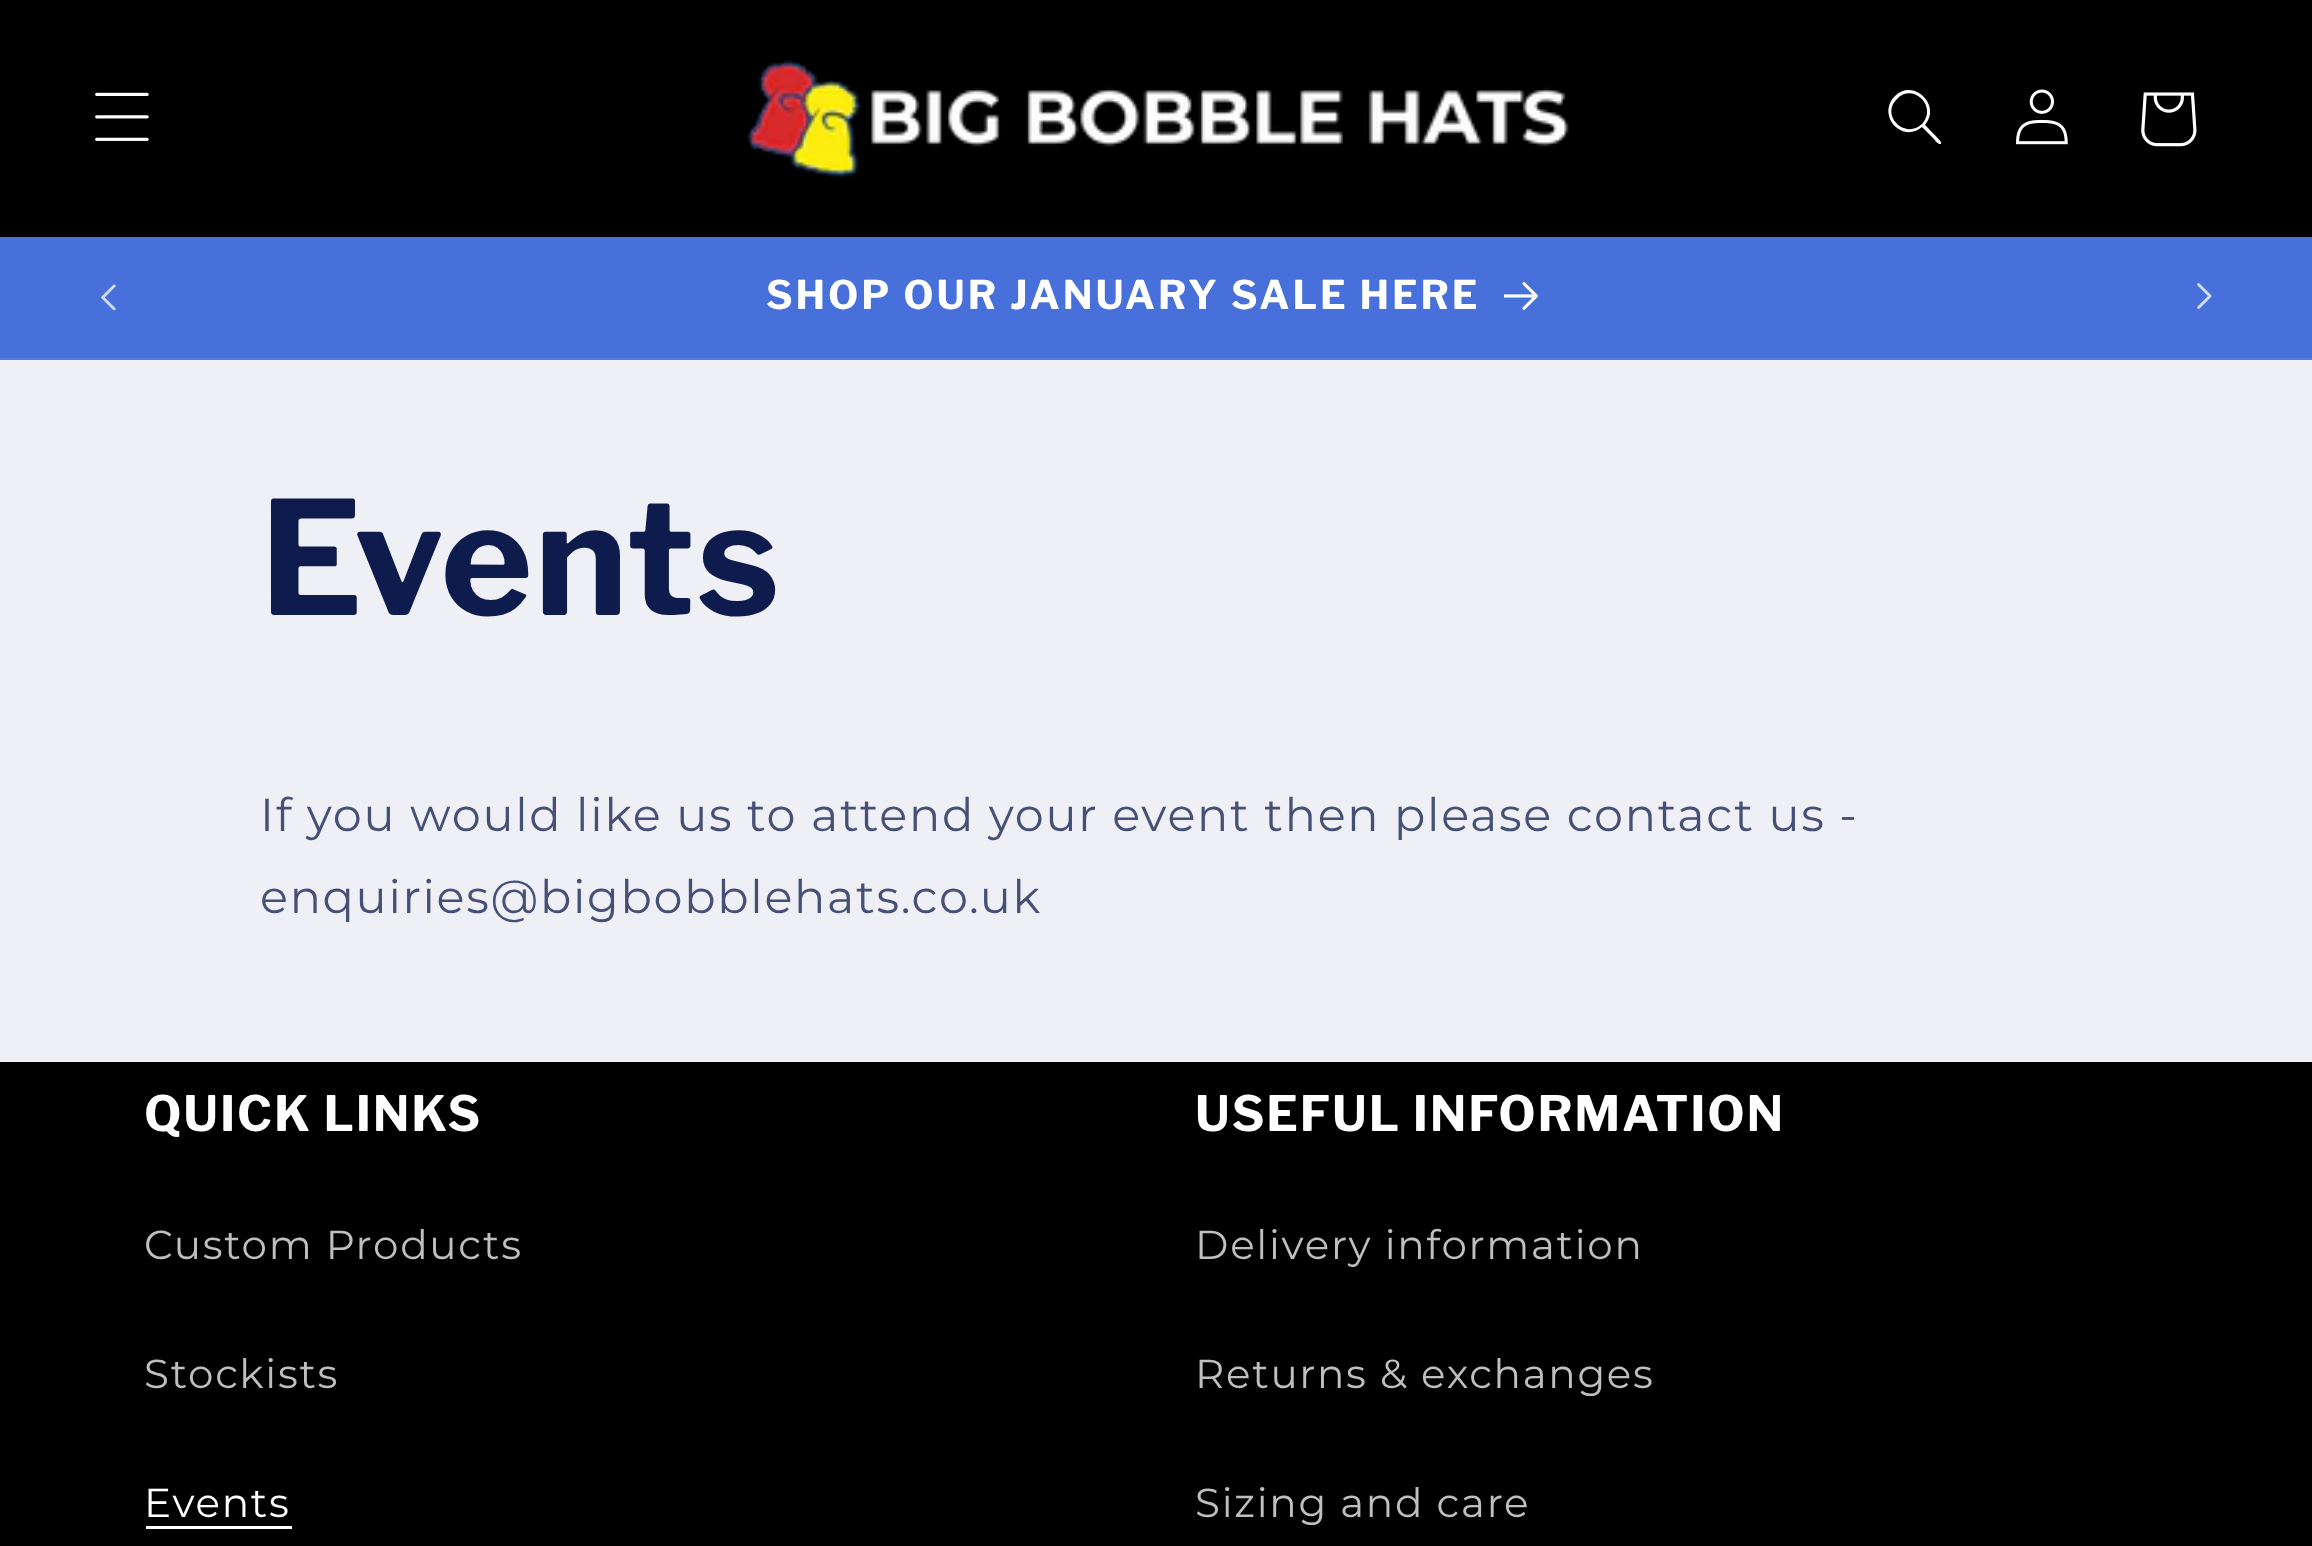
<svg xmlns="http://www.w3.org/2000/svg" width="2312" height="1546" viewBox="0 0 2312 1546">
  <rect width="100%" height="100%" fill="#eff0f5"/>
  <rect x="0" y="0" width="2312" height="237" fill="#000000"/>
  <image x="95" y="92" width="54" height="49" href="img1.png"/>
  <image x="747" y="59" width="822" height="118" href="img2.png"/>
  <path d="M1922 124C1905 140 1880 115 1897 99C1913 82 1938 107 1922 124ZM1922 127C1902 144 1876 115 1895 96C1913 78 1942 105 1925 125C1927 127 1941 141 1941 142V144C1938 145 1934 139 1933 138Z" fill="#ffffff" fill-rule="evenodd"/>
  <image x="2016" y="89" width="52" height="56" href="img3.png"/>
  <image x="2141" y="92" width="56" height="55" href="img4.png"/>
  <rect x="0" y="237" width="2312" height="121" fill="#4770db"/>
  <rect x="0" y="358" width="2312" height="2" fill="#567bde"/>
  <image x="101" y="284" width="15" height="27" href="img5.png"/>
  <text x="766" y="309" font-family="Libre Franklin" font-size="39.3" font-weight="bold" letter-spacing="2.9" fill="#ffffff">SHOP OUR JANUARY SALE HERE</text>
  <image x="1504" y="282" width="34" height="28" href="img6.png"/>
  <image x="2197" y="283" width="15" height="26" href="img7.png"/>
  <text x="260" y="615" font-family="Libre Franklin" font-size="157" font-weight="bold" letter-spacing="1.8" fill="#0e1b4d">Events</text>
  <text x="260" y="831" word-spacing="-0.1" font-family="Montserrat" font-size="46.2" letter-spacing="1.73" fill="#465077">If you would like us to attend your event then please contact us -</text>
  <text x="260" y="913" font-family="Montserrat" font-size="46.2" letter-spacing="1.73" fill="#465077">enquiries@bigbobblehats.co.uk</text>
  <rect x="0" y="1062" width="2312" height="484" fill="#000000"/>
  <text x="144" y="1131" font-family="Libre Franklin" font-size="48.4" font-weight="bold" letter-spacing="1.8" fill="#ffffff">QUICK LINKS</text>
  <text x="144" y="1259" font-family="Montserrat" font-size="40.5" letter-spacing="1.73" fill="#bfbfbf">Custom Products</text>
  <text x="144" y="1388" font-family="Montserrat" font-size="40.5" letter-spacing="1.73" fill="#bfbfbf">Stockists</text>
  <text x="144" y="1517" font-family="Montserrat" font-size="40.5" letter-spacing="1.73" fill="#ffffff">Events</text>
  <rect x="146" y="1526" width="146" height="3" fill="#ffffff"/>
  <text x="1195" y="1131" font-family="Libre Franklin" font-size="48.4" font-weight="bold" letter-spacing="1.8" fill="#ffffff">USEFUL INFORMATION</text>
  <text x="1195" y="1259" font-family="Montserrat" font-size="40.5" letter-spacing="1.73" fill="#bfbfbf">Delivery information</text>
  <text x="1195" y="1388" font-family="Montserrat" font-size="40.5" letter-spacing="1.73" fill="#bfbfbf">Returns &amp; exchanges</text>
  <text x="1195" y="1517" font-family="Montserrat" font-size="40.5" letter-spacing="1.73" fill="#bfbfbf">Sizing and care</text>
</svg>
